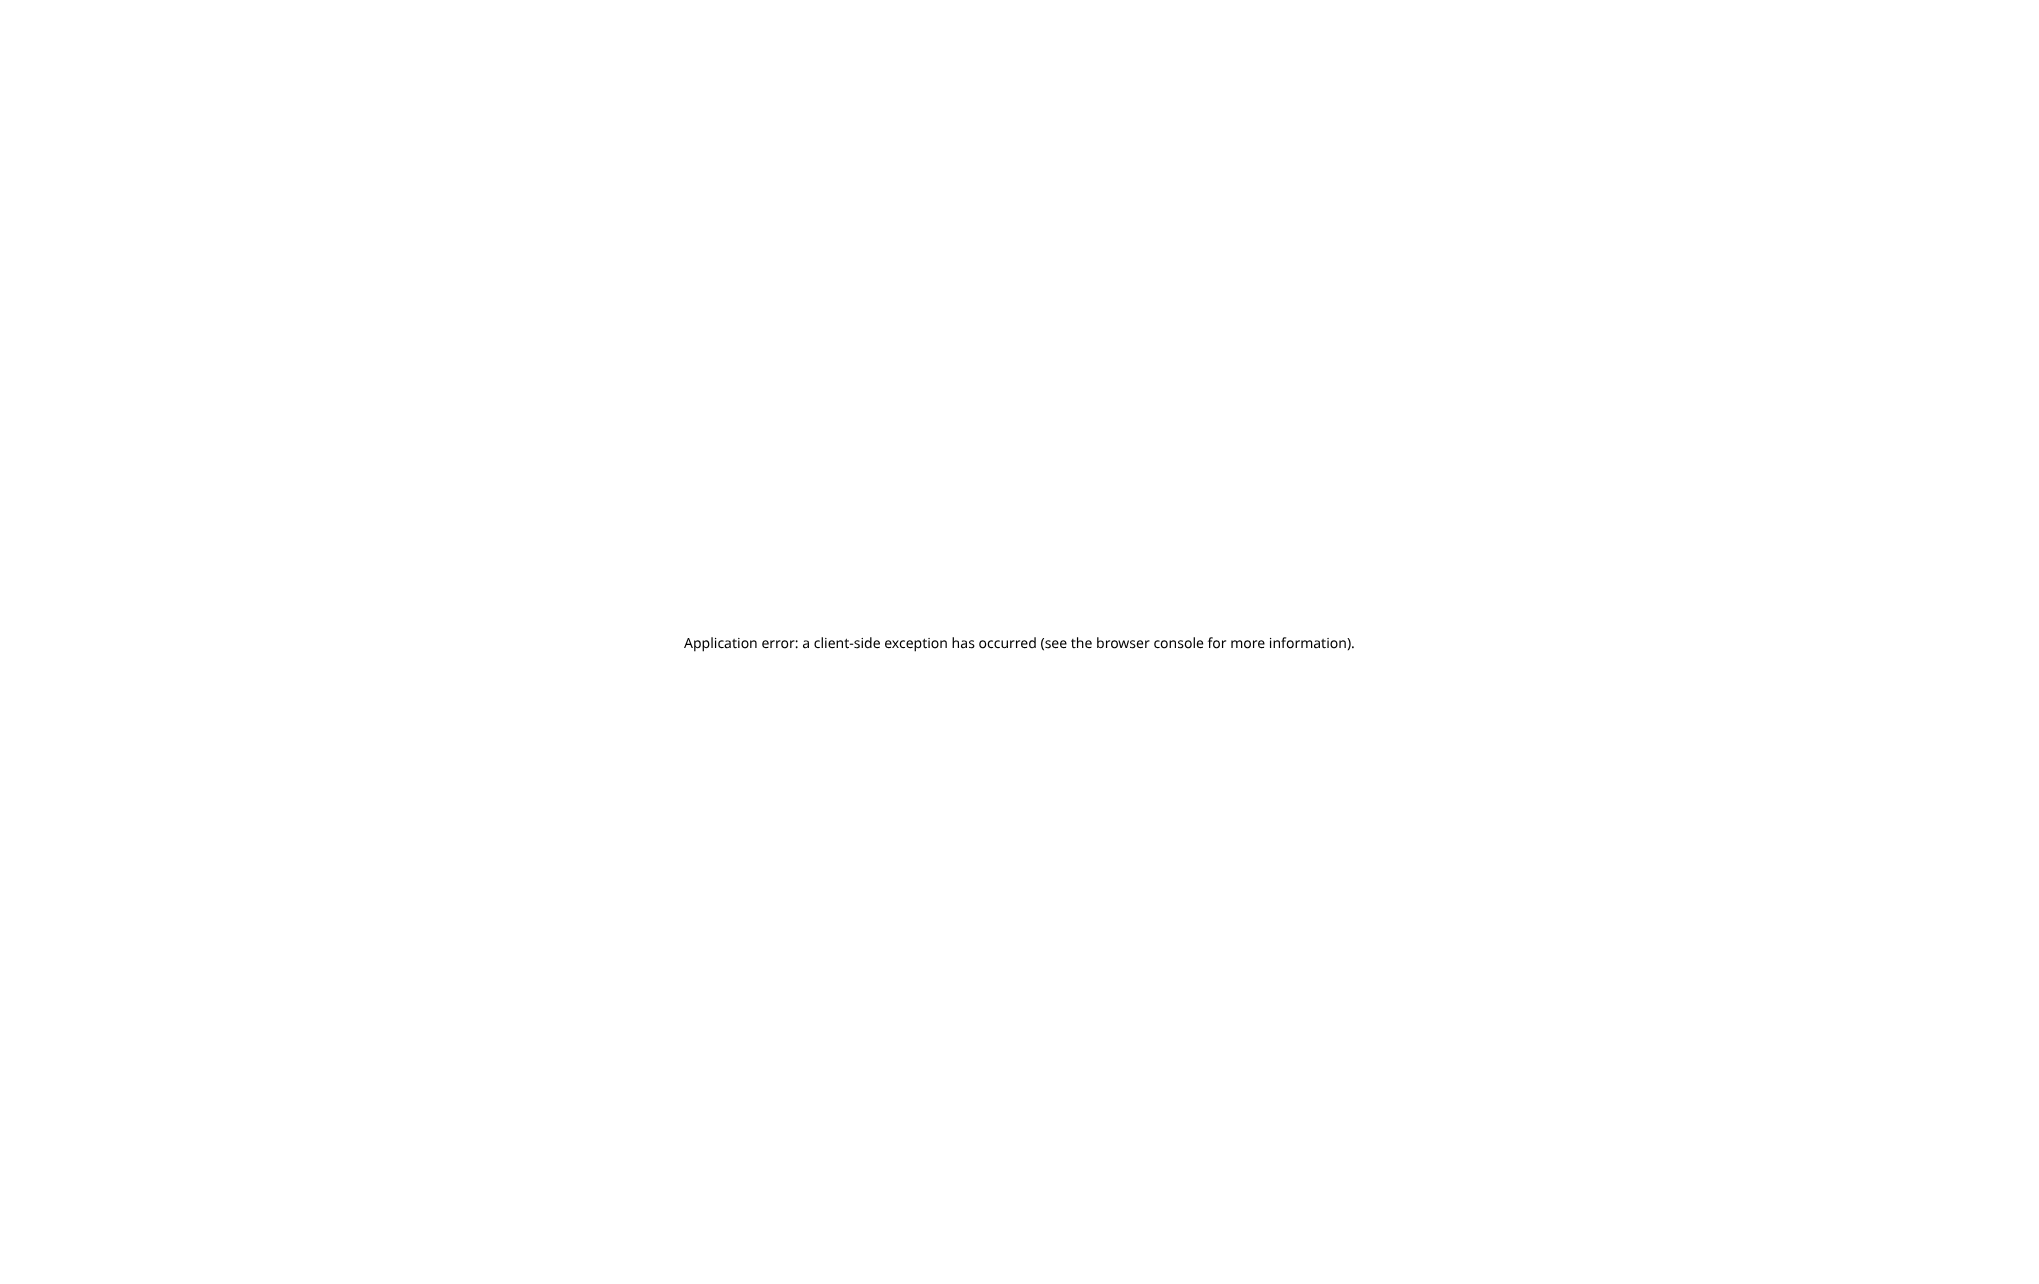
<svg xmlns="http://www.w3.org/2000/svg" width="2039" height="1284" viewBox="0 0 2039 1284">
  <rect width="100%" height="100%" fill="#ffffff"/>
  <text x="684" y="648" font-family="Noto Sans" font-size="14" fill="#000000">Application error: a client-side exception has occurred (see the browser console for more information).</text>
</svg>
